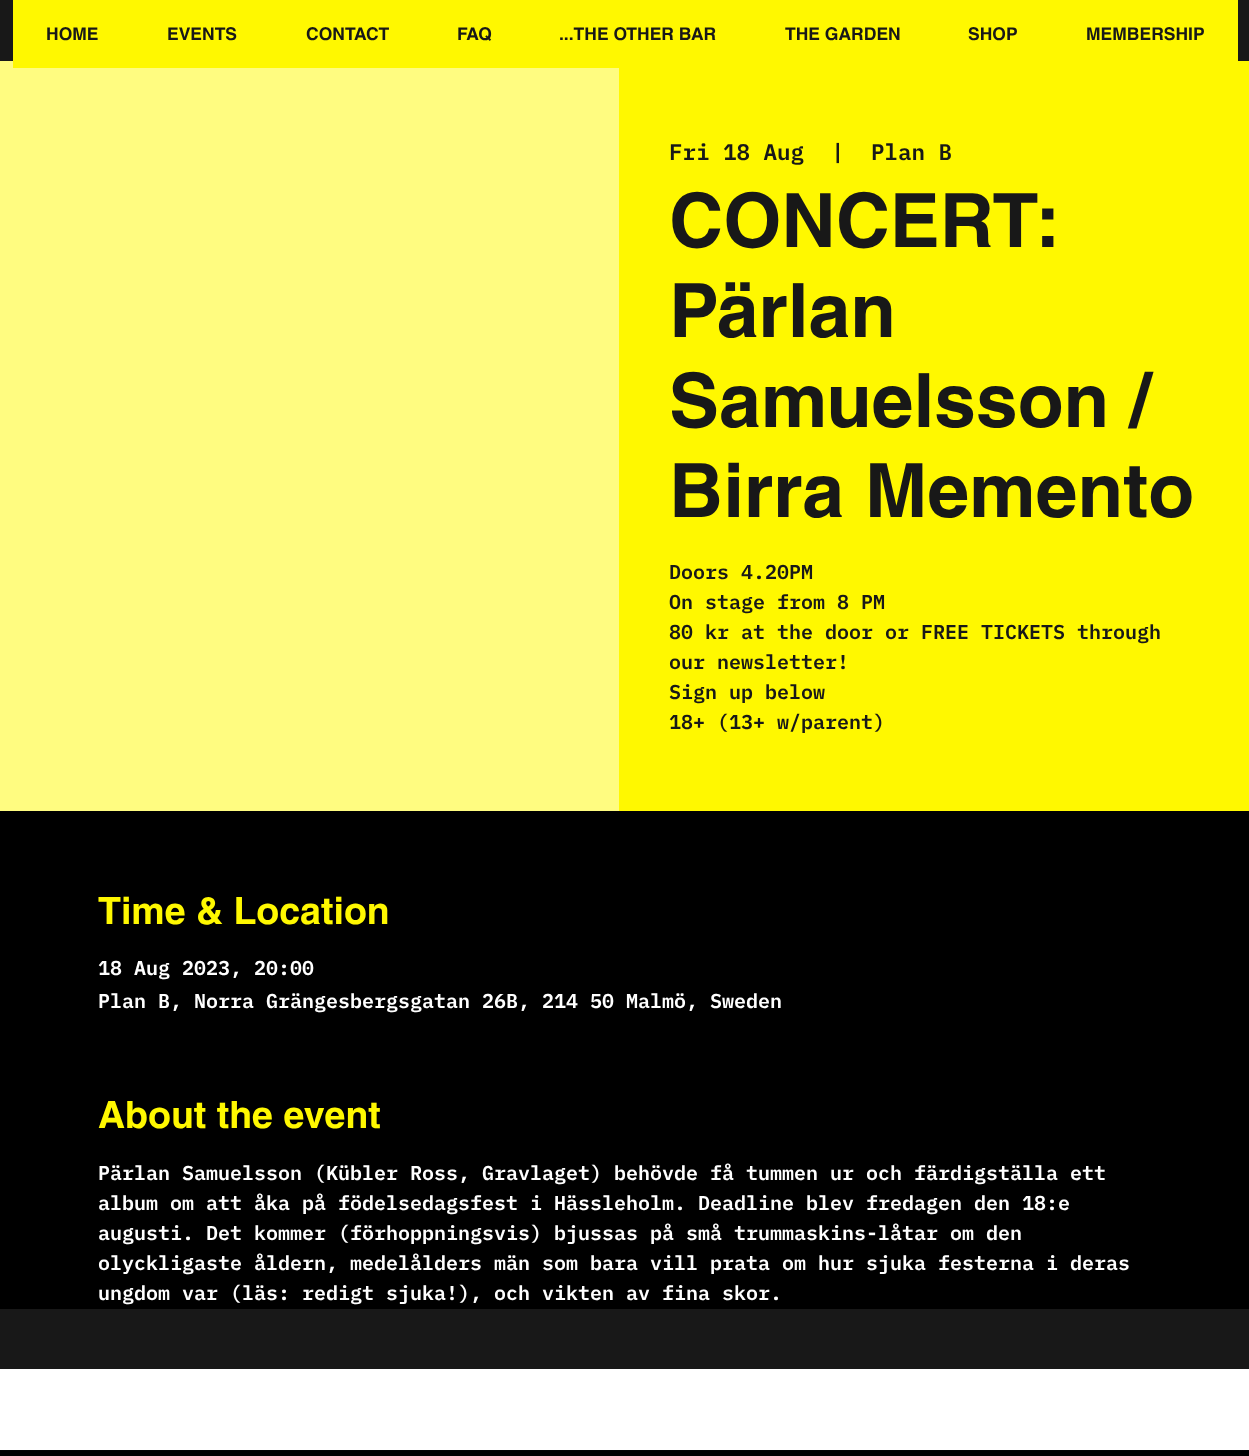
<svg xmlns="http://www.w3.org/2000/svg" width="1249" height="1456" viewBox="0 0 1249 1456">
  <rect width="100%" height="100%" fill="#181818"/>
  <rect x="0" y="61" width="619" height="750" fill="#fffc80"/>
  <rect x="619" y="61" width="630" height="750" fill="#fff800"/>
  <rect x="13" y="0" width="1225" height="68" fill="#fff800"/>
  <text x="46" y="40" font-family="helvetica" font-size="17.5" font-weight="bold" fill="#181818">HOME</text>
  <text x="167" y="40" font-family="helvetica" font-size="17.5" font-weight="bold" fill="#181818">EVENTS</text>
  <text x="306" y="40" font-family="helvetica" font-size="17.5" font-weight="bold" fill="#181818">CONTACT</text>
  <text x="457" y="40" font-family="helvetica" font-size="17.5" font-weight="bold" fill="#181818">FAQ</text>
  <text x="559" y="40" font-family="helvetica" font-size="17.5" font-weight="bold" fill="#181818">...THE OTHER BAR</text>
  <text x="785" y="40" font-family="helvetica" font-size="17.5" font-weight="bold" fill="#181818">THE GARDEN</text>
  <text x="968" y="40" font-family="helvetica" font-size="17.5" font-weight="bold" fill="#181818">SHOP</text>
  <text x="1086" y="40" font-family="helvetica" font-size="17.5" font-weight="bold" fill="#181818">MEMBERSHIP</text>
  <text x="669" y="160" font-family="IBM Plex Mono" font-size="22.5" font-weight="600" fill="#181818">Fri 18 Aug</text>
  <text x="831" y="160" font-family="IBM Plex Mono" font-size="22.5" font-weight="600" fill="#181818">|</text>
  <text x="871" y="160" font-family="IBM Plex Mono" font-size="22.5" font-weight="600" fill="#181818">Plan B</text>
  <text x="669" y="247" font-family="helvetica" font-size="75" font-weight="bold" fill="#181818">CONCERT:</text>
  <text x="669" y="337" font-family="helvetica" font-size="75" font-weight="bold" fill="#181818">Pärlan</text>
  <text x="669" y="427" font-family="helvetica" font-size="75" font-weight="bold" fill="#181818">Samuelsson /</text>
  <text x="669" y="517" font-family="helvetica" font-size="75" font-weight="bold" fill="#181818">Birra Memento</text>
  <text x="669" y="579" font-family="IBM Plex Mono" font-size="20" font-weight="600" fill="#181818">Doors 4.20PM</text>
  <text x="669" y="609" font-family="IBM Plex Mono" font-size="20" font-weight="600" fill="#181818">On stage from 8 PM</text>
  <text x="669" y="639" font-family="IBM Plex Mono" font-size="20" font-weight="600" fill="#181818">80 kr at the door or FREE TICKETS through</text>
  <text x="669" y="669" font-family="IBM Plex Mono" font-size="20" font-weight="600" fill="#181818">our newsletter!</text>
  <text x="669" y="699" font-family="IBM Plex Mono" font-size="20" font-weight="600" fill="#181818">Sign up below</text>
  <text x="669" y="729" font-family="IBM Plex Mono" font-size="20" font-weight="600" fill="#181818">18+ (13+ w/parent)</text>
  <rect x="0" y="811" width="1249" height="498" fill="#000000"/>
  <text x="98" y="924" font-family="helvetica" font-size="37.5" font-weight="bold" fill="#fff800">Time &amp; Location</text>
  <text x="98" y="975" font-family="IBM Plex Mono" font-size="20" font-weight="600" fill="#ffffff">18 Aug 2023, 20:00</text>
  <text x="98" y="1008" font-family="IBM Plex Mono" font-size="20" font-weight="600" fill="#ffffff">Plan B, Norra Grängesbergsgatan 26B, 214 50 Malmö, Sweden</text>
  <text x="98" y="1128" font-family="helvetica" font-size="37.5" font-weight="bold" fill="#fff800">About the event</text>
  <text x="98" y="1180" font-family="IBM Plex Mono" font-size="20" font-weight="600" fill="#ffffff">Pärlan Samuelsson (Kübler Ross, Gravlaget) behövde få tummen ur och färdigställa ett</text>
  <text x="98" y="1210" font-family="IBM Plex Mono" font-size="20" font-weight="600" fill="#ffffff">album om att åka på födelsedagsfest i Hässleholm. Deadline blev fredagen den 18:e</text>
  <text x="98" y="1240" font-family="IBM Plex Mono" font-size="20" font-weight="600" fill="#ffffff">augusti. Det kommer (förhoppningsvis) bjussas på små trummaskins-låtar om den</text>
  <text x="98" y="1270" font-family="IBM Plex Mono" font-size="20" font-weight="600" fill="#ffffff">olyckligaste åldern, medelålders män som bara vill prata om hur sjuka festerna i deras</text>
  <text x="98" y="1300" font-family="IBM Plex Mono" font-size="20" font-weight="600" fill="#ffffff">ungdom var (läs: redigt sjuka!), och vikten av fina skor.</text>
  <rect x="0" y="1369" width="1249" height="81" fill="#ffffff"/>
  <rect x="0" y="1451" width="1249" height="5" fill="#000000"/>
  <rect x="0" y="1450" width="1249" height="1" fill="#040404"/>
</svg>
